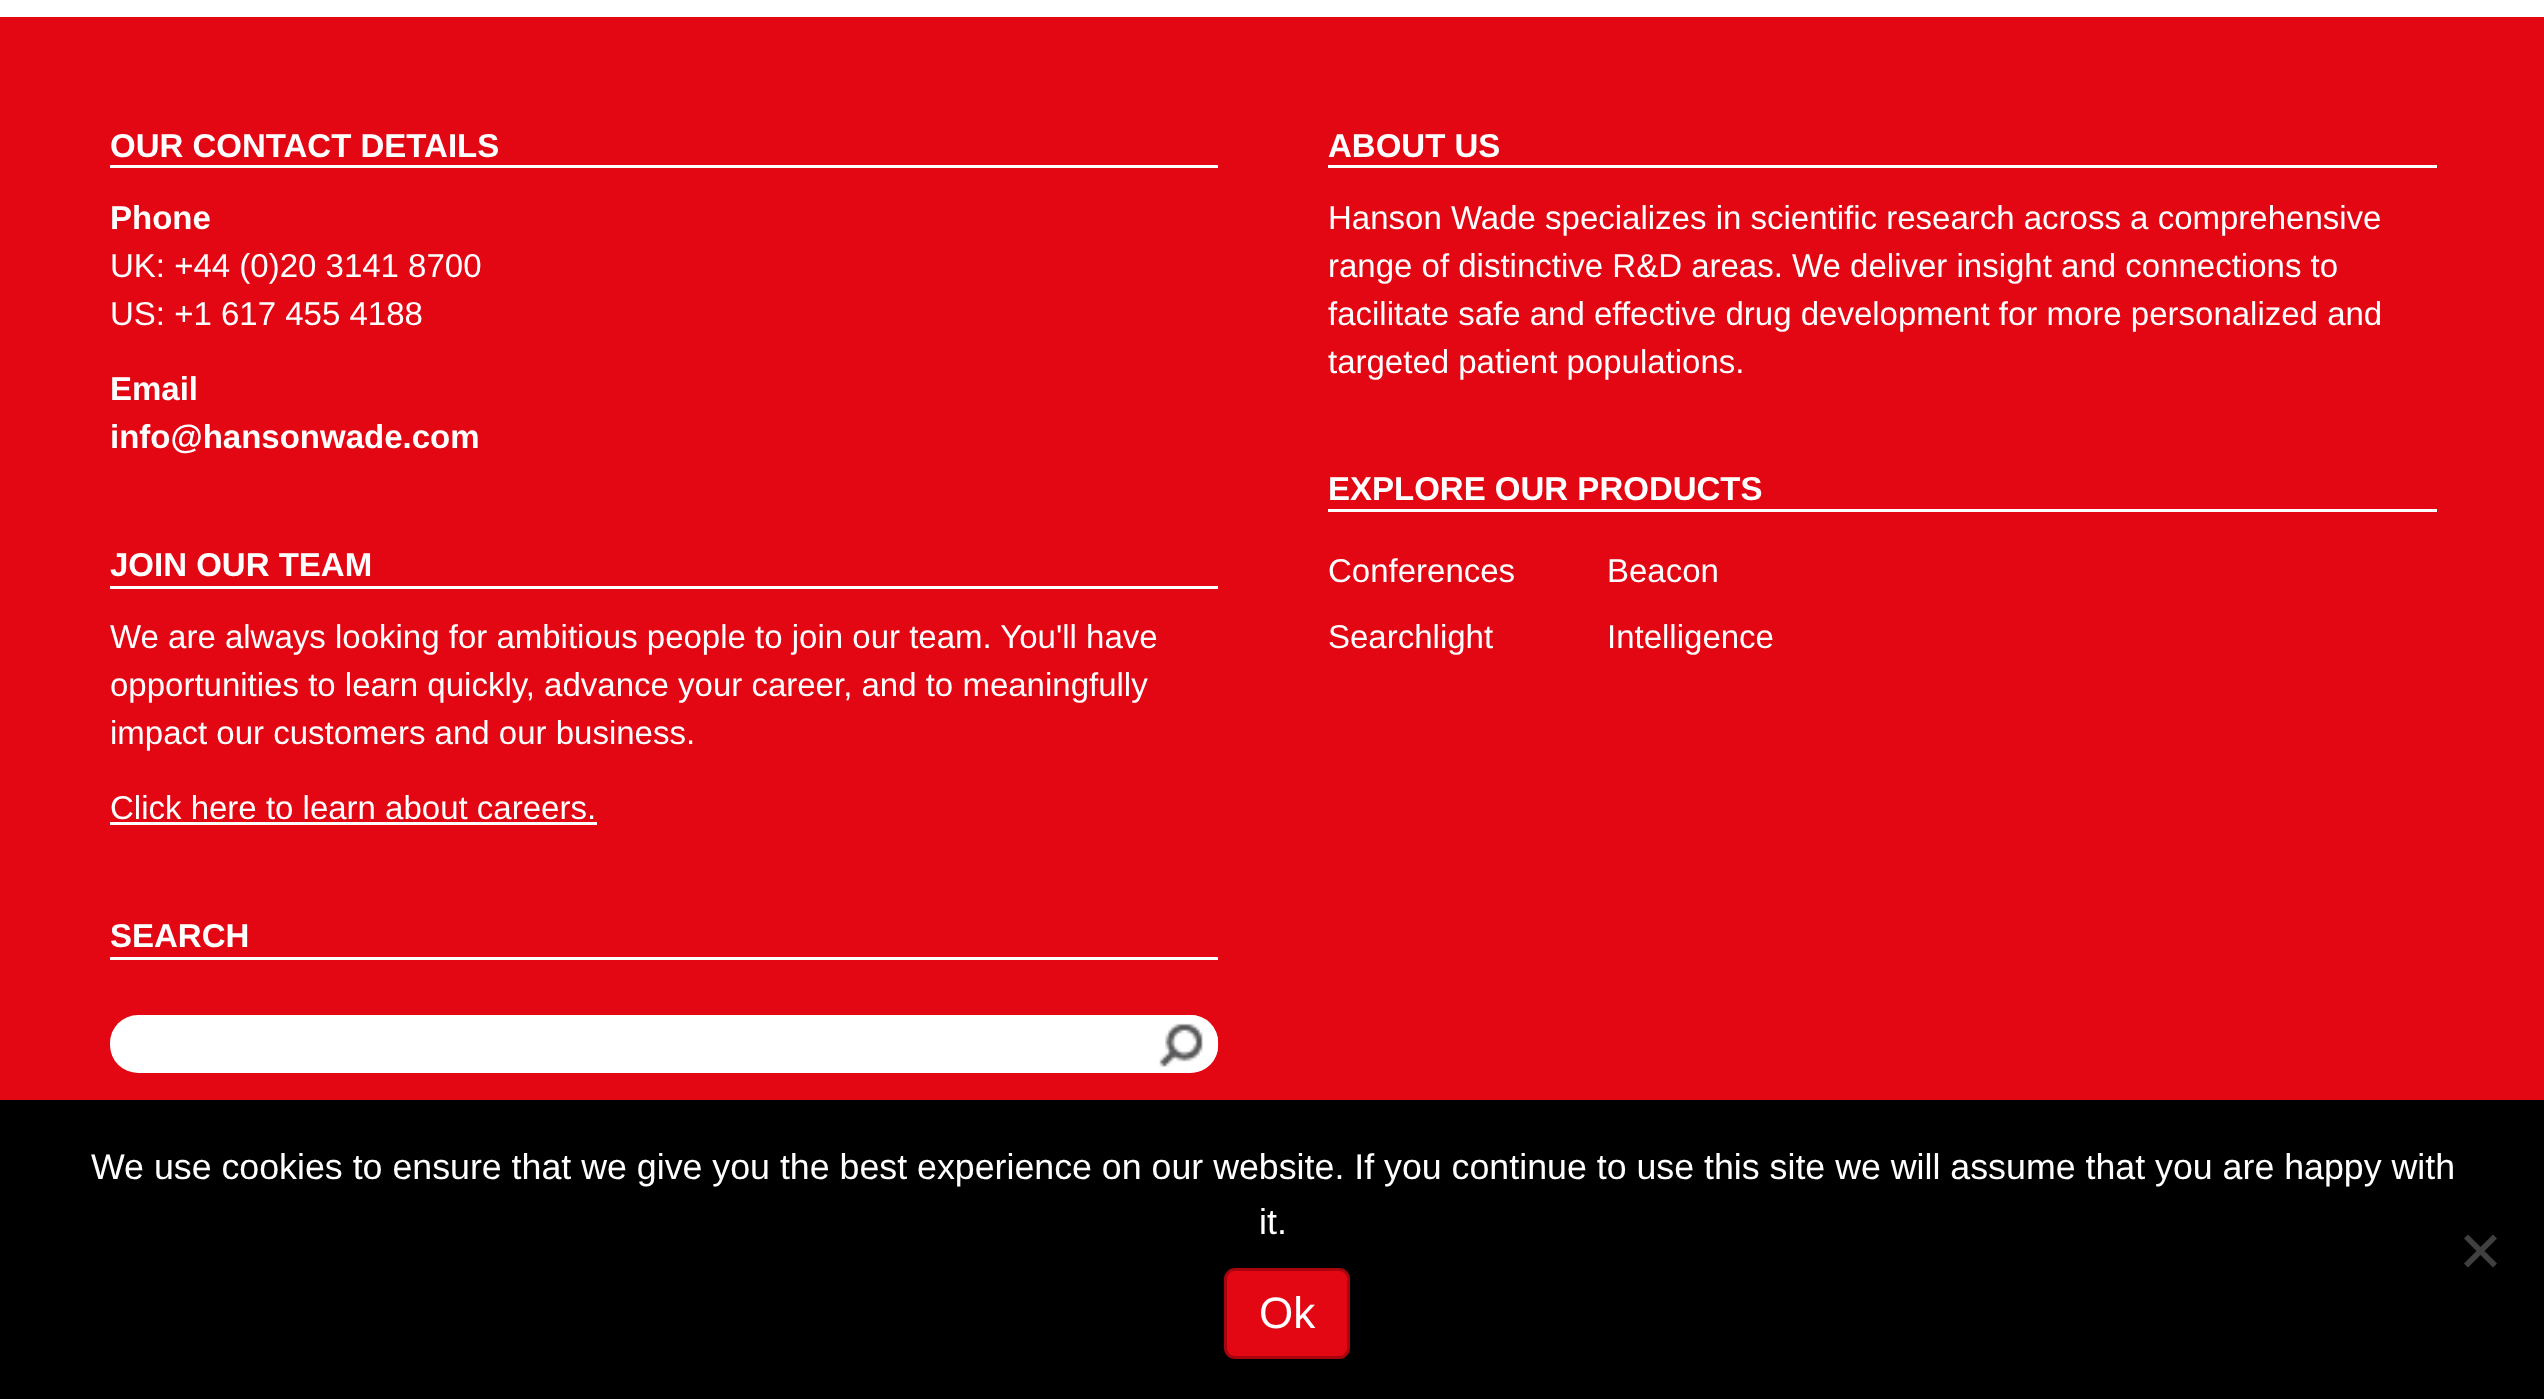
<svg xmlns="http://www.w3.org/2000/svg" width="2544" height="1399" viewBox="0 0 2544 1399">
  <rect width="100%" height="100%" fill="#ffffff"/>
  <rect x="0" y="17" width="2544" height="1083" fill="#e30613"/>
  <rect x="110" y="165" width="1108" height="3" fill="#ffffff"/>
  <text x="110" y="157" font-family="Liberation Sans" font-size="33" font-weight="bold" fill="#ffffff">OUR CONTACT DETAILS</text>
  <text x="110" y="229" font-family="Liberation Sans" font-size="33" font-weight="bold" fill="#ffffff">Phone</text>
  <text x="110" y="277" font-family="Liberation Sans" font-size="33" fill="#ffffff">UK: +44 (0)20 3141 8700</text>
  <text x="110" y="325" font-family="Liberation Sans" font-size="33" fill="#ffffff">US: +1 617 455 4188</text>
  <text x="110" y="400" font-family="Liberation Sans" font-size="33" font-weight="bold" fill="#ffffff">Email</text>
  <text x="110" y="448" font-family="Liberation Sans" font-size="33" font-weight="bold" fill="#ffffff">info@hansonwade.com</text>
  <rect x="110" y="586" width="1108" height="3" fill="#ffffff"/>
  <text x="110" y="576" font-family="Liberation Sans" font-size="33" font-weight="bold" fill="#ffffff">JOIN OUR TEAM</text>
  <text x="110" y="648" font-family="Liberation Sans" font-size="33" fill="#ffffff">We are always looking for ambitious people to join our team. You'll have</text>
  <text x="110" y="696" font-family="Liberation Sans" font-size="33" fill="#ffffff">opportunities to learn quickly, advance your career, and to meaningfully</text>
  <text x="110" y="744" font-family="Liberation Sans" font-size="33" fill="#ffffff">impact our customers and our business.</text>
  <text x="110" y="819" font-family="Liberation Sans" font-size="33" fill="#ffffff">Click here to learn about careers.</text>
  <rect x="110" y="822" width="487" height="3" fill="#ffffff"/>
  <rect x="1328" y="165" width="1109" height="3" fill="#ffffff"/>
  <text x="1328" y="157" font-family="Liberation Sans" font-size="33" font-weight="bold" fill="#ffffff">ABOUT US</text>
  <text x="1328" y="229" font-family="Liberation Sans" font-size="33" fill="#ffffff">Hanson Wade specializes in scientific research across a comprehensive</text>
  <text x="1328" y="277" font-family="Liberation Sans" font-size="33" fill="#ffffff">range of distinctive R&amp;D areas. We deliver insight and connections to</text>
  <text x="1328" y="325" font-family="Liberation Sans" font-size="33" fill="#ffffff">facilitate safe and effective drug development for more personalized and</text>
  <text x="1328" y="373" font-family="Liberation Sans" font-size="33" fill="#ffffff">targeted patient populations.</text>
  <rect x="1328" y="509" width="1109" height="3" fill="#ffffff"/>
  <text x="1328" y="500" font-family="Liberation Sans" font-size="33" font-weight="bold" fill="#ffffff">EXPLORE OUR PRODUCTS</text>
  <text x="1328" y="582" font-family="Liberation Sans" font-size="33" fill="#ffffff">Conferences</text>
  <text x="1607" y="582" font-family="Liberation Sans" font-size="33" fill="#ffffff">Beacon</text>
  <text x="1328" y="648" font-family="Liberation Sans" font-size="33" fill="#ffffff">Searchlight</text>
  <text x="1607" y="648" font-family="Liberation Sans" font-size="33" fill="#ffffff">Intelligence</text>
  <rect x="110" y="957" width="1108" height="3" fill="#ffffff"/>
  <text x="110" y="947" font-family="Liberation Sans" font-size="33" font-weight="bold" fill="#ffffff">SEARCH</text>
  <rect x="110" y="1015" width="1108" height="58" rx="28" fill="#ffffff"/>
  <image x="1159" y="1015" width="60" height="58" href="img1.png"/>
  <rect x="0" y="1100" width="2544" height="299" fill="#000000"/>
  <text x="91" y="1179" font-family="Liberation Sans" font-size="35.75" fill="#ffffff">We use cookies to ensure that we give you the best experience on our website. If you continue to use this site we will assume that you are happy with</text>
  <text x="1259" y="1234" font-family="Liberation Sans" font-size="35.75" fill="#ffffff">it.</text>
  <path d="M2493 1234.5L2497 1238.5L2468 1267.5L2464 1263.5Z" fill="#404040"/>
  <path d="M2464 1238.5L2468 1234.5L2497 1263.5L2493 1267.5Z" fill="#404040"/>
  <rect x="1225.5" y="1269.5" width="123" height="88" rx="9.5" fill="#e30613" stroke="#a7040e" stroke-width="3"/>
  <text x="1259" y="1328" font-family="Liberation Sans" font-size="44" fill="#ffffff">Ok</text>
</svg>
